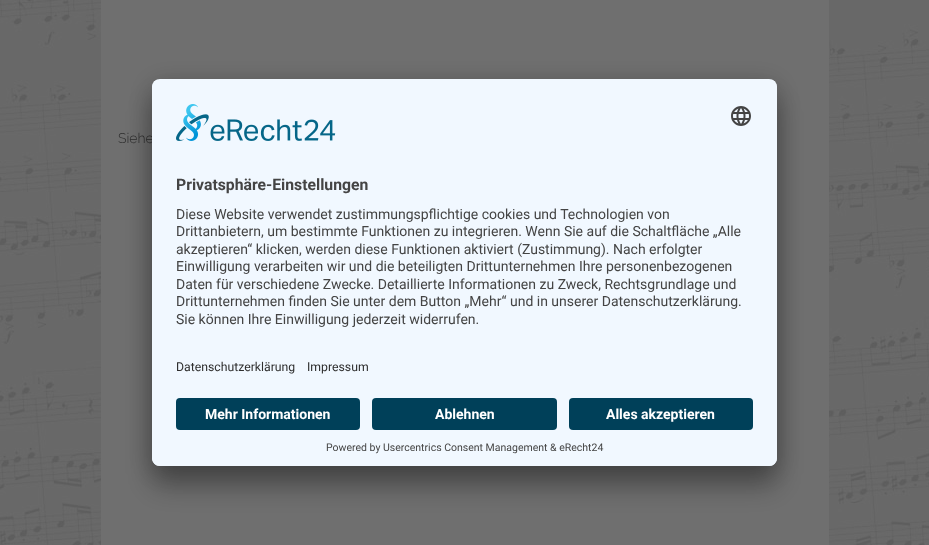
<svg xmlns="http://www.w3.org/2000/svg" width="929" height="545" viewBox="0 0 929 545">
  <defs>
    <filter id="blur1" x="-50%" y="-200%" width="200%" height="500%"><feGaussianBlur stdDeviation="14"/></filter>
    <filter id="blur2" x="-50%" y="-200%" width="200%" height="500%"><feGaussianBlur stdDeviation="13"/></filter>
    <clipPath id="clip1"><rect x="152" y="79" width="625" height="387" rx="8"/></clipPath>
    <clipPath id="clip2"><path d="M160 79H769C773.5 79 777 82.5 777 87V390H152V87C152 82.5 155.5 79 160 79Z"/></clipPath>
  </defs>
  <rect width="100%" height="100%" fill="#ffffff"/>
  <image x="0" y="0" width="929" height="545" href="img1.png"/>
  <rect x="101" y="0" width="728" height="545" fill="#6f6f6f"/>
  <text x="118" y="143" font-family="Raleway" font-size="14" font-weight="300" fill="#2e2e2e">Siehe</text>
  <rect x="152" y="99" width="625" height="387" rx="8" fill="#000000" fill-opacity="0.3" filter="url(#blur1)"/>
  <rect x="152" y="84" width="625" height="387" rx="8" fill="#000000" fill-opacity="0.22" filter="url(#blur2)"/>
  <rect x="152" y="79" width="625" height="387" rx="8" fill="#f1f8ff"/>
  <g clip-path="url(#clip1)">
    <g clip-path="url(#clip2)">
      <rect x="152" y="80" width="625" height="310" fill="#f1f8ff"/>
    </g>
  </g>
  <image x="176" y="104" width="160" height="37" href="img2.png"/>
  <image x="731" y="106" width="20" height="20" href="img3.png"/>
  <text x="176" y="190" font-family="Roboto" font-size="15.75" font-weight="bold" fill="#444444">Privatsphäre-Einstellungen</text>
  <text x="176" y="219" font-family="Roboto" font-size="14" fill="#444444">Diese Website verwendet zustimmungspflichtige cookies und Technologien von</text>
  <text x="176" y="236" font-family="Roboto" font-size="14" fill="#444444">Drittanbietern, um bestimmte Funktionen zu integrieren. Wenn Sie auf die Schaltfläche „Alle</text>
  <text x="176" y="254" font-family="Roboto" font-size="14" fill="#444444">akzeptieren“ klicken, werden diese Funktionen aktiviert (Zustimmung). Nach erfolgter</text>
  <text x="176" y="271" font-family="Roboto" font-size="14" fill="#444444">Einwilligung verarbeiten wir und die beteiligten Drittunternehmen Ihre personenbezogenen</text>
  <text x="176" y="289" font-family="Roboto" font-size="14" fill="#444444">Daten für verschiedene Zwecke. Detaillierte Informationen zu Zweck, Rechtsgrundlage und</text>
  <text x="176" y="306" font-family="Roboto" font-size="14" fill="#444444">Drittunternehmen finden Sie unter dem Button „Mehr“ und in unserer Datenschutzerklärung.</text>
  <text x="176" y="324" font-family="Roboto" font-size="14" fill="#444444">Sie können Ihre Einwilligung jederzeit widerrufen.</text>
  <text x="176" y="371" font-family="Roboto" font-size="12.25" fill="#2e2e2e">Datenschutzerklärung</text>
  <text x="307" y="371" font-family="Roboto" font-size="12.25" fill="#2e2e2e">Impressum</text>
  <path d="M152 390H777V458C777 462.5 773.5 466 769 466H160C155.5 466 152 462.5 152 458Z" fill="#f1f8ff"/>
  <rect x="176" y="398" width="184" height="32" rx="4" fill="#004059"/>
  <text x="205" y="419" font-family="Roboto" font-size="14" font-weight="bold" fill="#ffffff">Mehr Informationen</text>
  <rect x="372" y="398" width="185" height="32" rx="4" fill="#004059"/>
  <text x="435" y="419" font-family="Roboto" font-size="14" font-weight="bold" fill="#ffffff">Ablehnen</text>
  <rect x="569" y="398" width="184" height="32" rx="4" fill="#004059"/>
  <text x="606" y="419" font-family="Roboto" font-size="14" font-weight="bold" fill="#ffffff">Alles akzeptieren</text>
  <text x="326" y="451" font-family="Roboto" font-size="10.5" fill="#444444">Powered by Usercentrics Consent Management &amp; eRecht24</text>
</svg>
